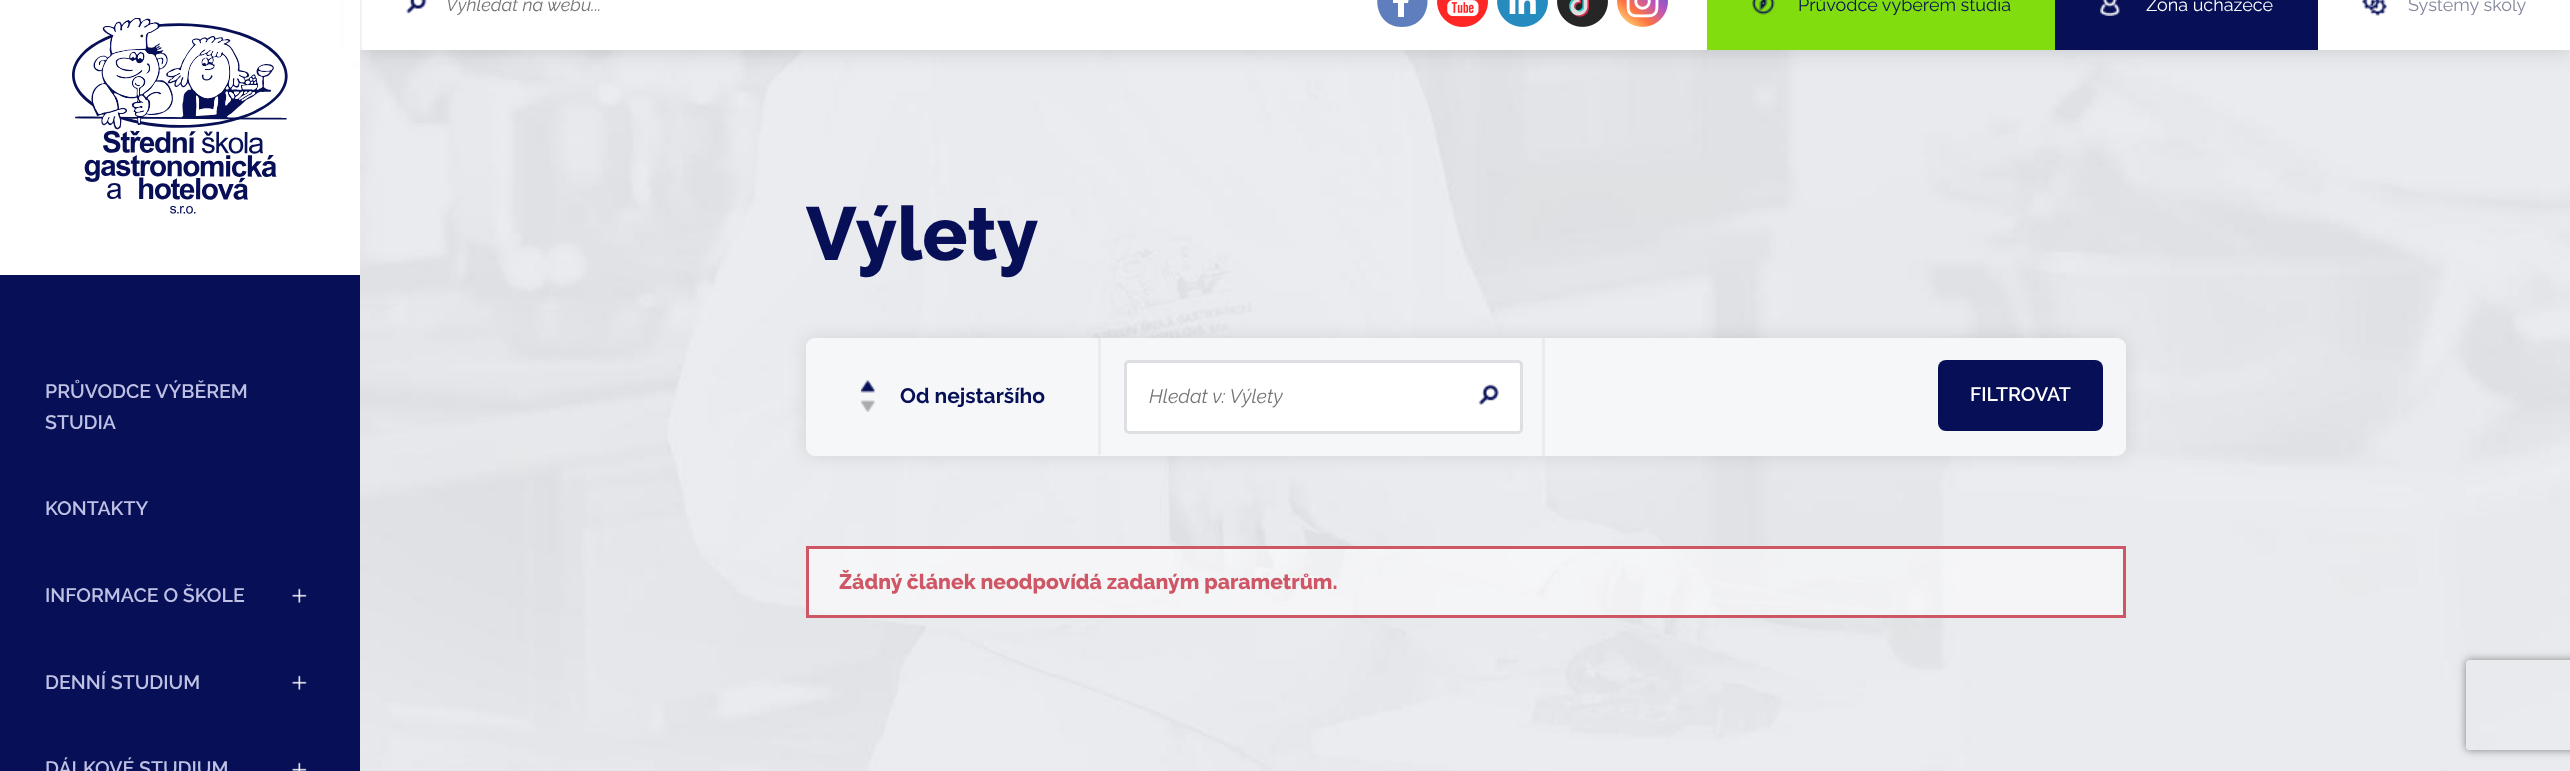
<svg xmlns="http://www.w3.org/2000/svg" width="2570" height="771" viewBox="0 0 2570 771">
  <defs>
    <filter id="blur1" x="-50%" y="-200%" width="200%" height="500%"><feGaussianBlur stdDeviation="11"/></filter>
    <filter id="blur2" x="-50%" y="-200%" width="200%" height="500%"><feGaussianBlur stdDeviation="9"/></filter>
    <clipPath id="clip1"><path d="M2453 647H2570V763H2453ZM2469 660H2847C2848.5 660 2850 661.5 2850 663V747C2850 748.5 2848.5 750 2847 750H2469C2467.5 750 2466 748.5 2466 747V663C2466 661.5 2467.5 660 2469 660Z" clip-rule="evenodd"/></clipPath>
    <filter id="blur3" x="-50%" y="-200%" width="200%" height="500%"><feGaussianBlur stdDeviation="4"/></filter>
  </defs>
  <rect width="100%" height="100%" fill="#ffffff"/>
  <image x="360" y="50" width="2210" height="721" href="img12.png"/>
  <rect x="360" y="-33" width="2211" height="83" fill="#000000" fill-opacity="0.15" filter="url(#blur1)"/>
  <rect x="362" y="0" width="2208" height="50" fill="#ffffff"/>
  <rect x="360" y="0" width="2" height="50" fill="#f1f1f1"/>
  <image x="406" y="0" width="21" height="14" href="img1.png"/>
  <text x="446" y="11" font-family="Raleway" font-size="18" font-style="italic" fill="#757575">Vyhledat na webu...</text>
  <path d="M1402-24C1369-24 1369 27 1402 27C1436 27 1436-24 1402-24ZM1409-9C1404-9 1404-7 1404-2H1409L1408 3H1404V17H1398V3H1393V-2H1398C1398-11 1400-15 1409-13Z" fill="#5e7ebe"/>
  <image x="1437" y="0" width="51" height="27" href="img2.png"/>
  <image x="1497" y="0" width="51" height="27" href="img3.png"/>
  <image x="1557" y="0" width="51" height="27" href="img4.png"/>
  <image x="1617" y="0" width="51" height="27" href="img5.png"/>
  <rect x="1707" y="0" width="348" height="50" fill="#81dd0e"/>
  <image x="1752" y="0" width="23" height="15" href="img6.png"/>
  <text x="1798" y="11" font-family="Raleway" font-size="18" fill="#070f57">Průvodce výběrem studia</text>
  <rect x="2055" y="0" width="263" height="50" fill="#070f57"/>
  <image x="2100" y="0" width="20" height="16" href="img7.png"/>
  <text x="2146" y="11" font-family="Raleway" font-size="18" fill="#ffffff">Zóna uchazeče</text>
  <image x="2362" y="0" width="25" height="16" href="img8.png"/>
  <text x="2408" y="11" font-family="Raleway" font-size="18" fill="#84869d">Systémy školy</text>
  <rect x="0" y="275" width="360" height="496" fill="#070f57"/>
  <rect x="344" y="0" width="16" height="62" fill="#ffffff"/>
  <image x="72" y="18" width="216" height="196" href="img9.png"/>
  <text x="45" y="398" font-family="Raleway" font-size="19.5" font-weight="600" fill="#bec1e3">PRŮVODCE VÝBĚREM</text>
  <text x="45" y="429" font-family="Raleway" font-size="19.5" font-weight="600" fill="#bec1e3">STUDIA</text>
  <text x="45" y="515" font-family="Raleway" font-size="19.5" font-weight="600" fill="#bec1e3">KONTAKTY</text>
  <text x="45" y="602" font-family="Raleway" font-size="19.5" font-weight="600" fill="#bec1e3">INFORMACE O ŠKOLE</text>
  <image x="292" y="588" width="15" height="15" href="img10.png"/>
  <text x="45" y="689" font-family="Raleway" font-size="19.5" font-weight="600" fill="#bec1e3">DENNÍ STUDIUM</text>
  <image x="292" y="675" width="15" height="15" href="img10.png"/>
  <text x="45" y="775" font-family="Raleway" font-size="19.5" font-weight="600" fill="#bec1e3">DÁLKOVÉ STUDIUM</text>
  <image x="292" y="762" width="15" height="9" href="img11.png"/>
  <text x="806" y="260" font-family="Raleway" font-size="75" font-weight="800" fill="#070f57">Výlety</text>
  <rect x="806" y="338" width="1320" height="118" rx="9" fill="#000000" fill-opacity="0.1" filter="url(#blur2)"/>
  <rect x="806" y="338" width="1320" height="118" rx="9" fill="#f5f7f9"/>
  <rect x="1098" y="338" width="3" height="117" fill="#eaecef"/>
  <image x="861" y="380" width="14" height="32" href="img13.png"/>
  <text x="900" y="403" font-family="Raleway" font-size="21" font-weight="bold" fill="#070f57">Od nejstaršího</text>
  <rect x="1542" y="338" width="3" height="118" fill="#eaecef"/>
  <rect x="1124" y="360" width="399" height="74" rx="5" fill="#ffffff"/>
  <image x="1478" y="384" width="21" height="21" href="img14.png"/>
  <rect x="1125.5" y="361.5" width="396" height="71" rx="3.5" fill="none" stroke="#dddfe3" stroke-width="3"/>
  <text x="1149" y="403" font-family="Raleway" font-size="19.5" font-style="italic" fill="#757575">Hledat v: Výlety</text>
  <rect x="1938" y="360" width="165" height="71" rx="8" fill="#070f57"/>
  <text x="1970" y="401" font-family="Raleway" font-size="19.5" font-weight="600" fill="#ffffff">FILTROVAT</text>
  <rect x="807.5" y="547.5" width="1317" height="69" fill="#ffffff" fill-opacity="0.5" stroke="#cf5765" stroke-width="3"/>
  <text x="839" y="589" font-family="Raleway" font-size="21" font-weight="800" fill="#cf5765">Žádný článek neodpovídá zadaným parametrům.</text>
  <g clip-path="url(#clip1)">
    <rect x="2466" y="660" width="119" height="90" rx="3" fill="#808080" filter="url(#blur3)"/>
  </g>
</svg>
